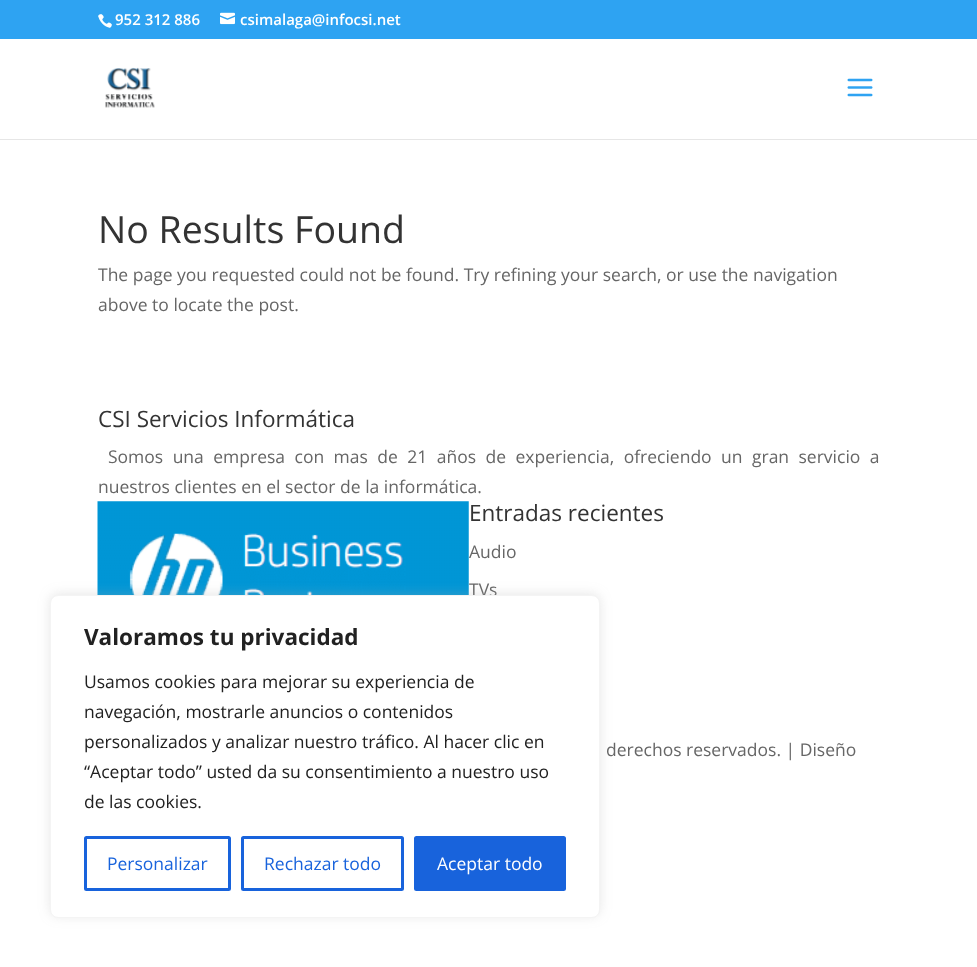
<svg xmlns="http://www.w3.org/2000/svg" width="977" height="967" viewBox="0 0 977 967">
  <defs>
    <filter id="blur1" x="-50%" y="-200%" width="200%" height="500%"><feGaussianBlur stdDeviation="6"/></filter>
  </defs>
  <rect width="100%" height="100%" fill="#ffffff"/>
  <rect x="0" y="0" width="977" height="39" fill="#2ea3f2"/>
  <image x="98" y="14" width="14" height="14" href="img1.png"/>
  <text x="115" y="25" font-family="Open Sans" font-size="15" font-weight="600" fill="#ffffff">952 312 886</text>
  <image x="220" y="12" width="15" height="13" href="img2.png"/>
  <text x="240" y="25" font-family="Open Sans" font-size="15" font-weight="600" fill="#ffffff">csimalaga@infocsi.net</text>
  <path d="M0 139V140H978V40V139Z" fill="#e6e6e6"/>
  <image x="105" y="67" width="50" height="41" href="img3.png"/>
  <image x="847" y="78" width="26" height="19" href="img4.png"/>
  <text x="98" y="243" font-family="Open Sans" font-size="37.5" fill="#333333">No Results Found</text>
  <text x="98" y="281" font-family="Open Sans" font-size="17.5" fill="#666666">The page you requested could not be found. Try refining your search, or use the navigation</text>
  <text x="98" y="311" font-family="Open Sans" font-size="17.5" fill="#666666">above to locate the post.</text>
  <text x="98" y="427" font-family="Open Sans" font-size="22.5" fill="#333333">CSI Servicios Informática</text>
  <text x="108" y="463" word-spacing="4.9" font-family="Open Sans" font-size="17.5" fill="#666666">Somos una empresa con mas de 21 años de experiencia, ofreciendo un gran servicio a</text>
  <text x="98" y="493" font-family="Open Sans" font-size="17.5" fill="#666666">nuestros clientes en el sector de la informática.</text>
  <image x="97" y="501" width="372" height="94" href="img5.png"/>
  <text x="469" y="521" font-family="Open Sans" font-size="22.5" fill="#333333">Entradas recientes</text>
  <text x="469" y="558" font-family="Open Sans" font-size="17.5" fill="#666666">Audio</text>
  <text x="469" y="596" font-family="Open Sans" font-size="17.5" fill="#666666">TVs</text>
  <text x="606" y="756" font-family="Open Sans" font-size="17.5" fill="#666666">derechos reservados. | Diseño</text>
  <rect x="50" y="594" width="550" height="322" rx="8" fill="#acabab" fill-opacity="0.3" filter="url(#blur1)"/>
  <rect x="50.5" y="595.5" width="549" height="322" rx="7.5" fill="#ffffff" stroke="#f4f4f4"/>
  <text x="84" y="645" font-family="Open Sans" font-size="22.5" font-weight="bold" fill="#212121">Valoramos tu privacidad</text>
  <text x="84" y="688" font-family="Open Sans" font-size="17.5" fill="#212121">Usamos cookies para mejorar su experiencia de</text>
  <text x="84" y="718" font-family="Open Sans" font-size="17.5" fill="#212121">navegación, mostrarle anuncios o contenidos</text>
  <text x="84" y="748" font-family="Open Sans" font-size="17.5" fill="#212121">personalizados y analizar nuestro tráfico. Al hacer clic en</text>
  <text x="84" y="778" font-family="Open Sans" font-size="17.5" fill="#212121">“Aceptar todo” usted da su consentimiento a nuestro uso</text>
  <text x="84" y="808" font-family="Open Sans" font-size="17.5" fill="#212121">de las cookies.</text>
  <rect x="85.5" y="837.5" width="144" height="52" rx="1" fill="none" stroke="#1863dc" stroke-width="3"/>
  <text x="107" y="870" font-family="Open Sans" font-size="17.5" fill="#1863dc">Personalizar</text>
  <rect x="242.5" y="837.5" width="160" height="52" rx="1" fill="none" stroke="#1863dc" stroke-width="3"/>
  <text x="264" y="870" font-family="Open Sans" font-size="17.5" fill="#1863dc">Rechazar todo</text>
  <rect x="415.5" y="837.5" width="149" height="52" rx="1" fill="#1863dc" stroke="#1863dc" stroke-width="3"/>
  <text x="437" y="870" font-family="Open Sans" font-size="17.5" fill="#ffffff">Aceptar todo</text>
</svg>
